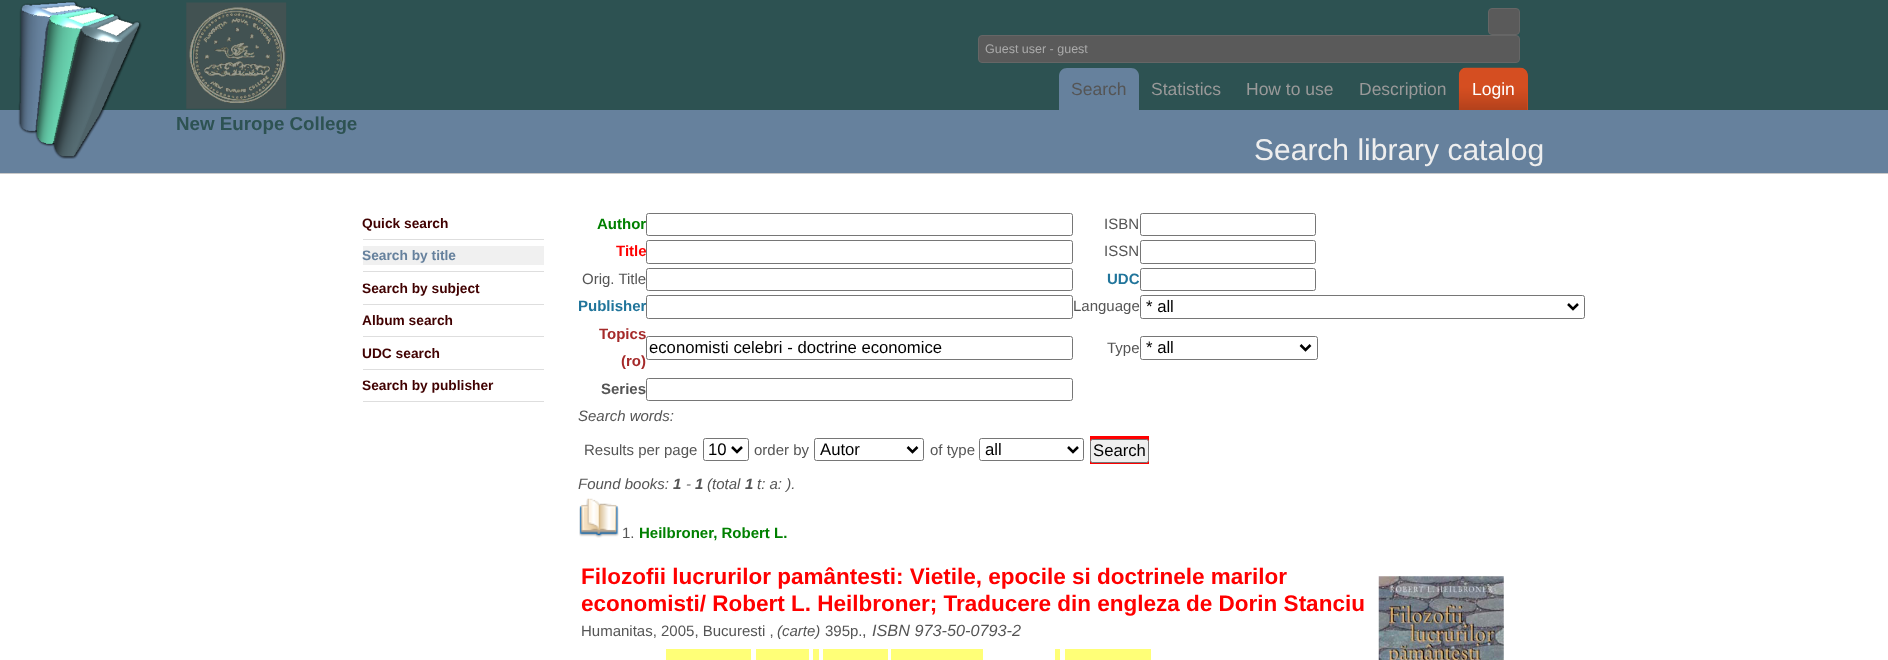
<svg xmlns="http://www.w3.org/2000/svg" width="1888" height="660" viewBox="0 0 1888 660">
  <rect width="100%" height="100%" fill="#ffffff"/>
  <rect x="0" y="0" width="1888" height="110" fill="#2d5252"/>
  <rect x="0" y="110" width="1888" height="63" fill="#66819d"/>
  <image x="18" y="1" width="124" height="158" href="img1.png"/>
  <image x="186" y="2" width="101" height="107" href="img2.png"/>
  <rect x="1488.5" y="8.5" width="31" height="26" rx="3.5" fill="#5a5a5a" stroke="#666666"/>
  <rect x="978.5" y="35.5" width="541" height="27" rx="3.5" fill="#5a5a5a" stroke="#666666"/>
  <text x="985" y="53" font-family="Liberation Sans" font-size="12.5" fill="#aaaaaa">Guest user - guest</text>
  <path d="M1067 68H1131C1135.5 68 1139 71.5 1139 76V110H1059V76C1059 71.5 1062.5 68 1067 68Z" fill="#66819d"/>
  <text x="1071" y="95" font-family="Liberation Sans" font-size="17.5" fill="#555555">Search</text>
  <text x="1151" y="95" font-family="Liberation Sans" font-size="17.5" fill="#999999">Statistics</text>
  <text x="1246" y="95" font-family="Liberation Sans" font-size="17.5" fill="#999999">How to use</text>
  <text x="1359" y="95" font-family="Liberation Sans" font-size="17.5" fill="#999999">Description</text>
  <path d="M1467 68H1520C1524.5 68 1528 71.5 1528 76V110H1459V76C1459 71.5 1462.5 68 1467 68Z" fill="#d54e21"/>
  <image x="1458" y="67" width="70" height="43" href="img3.png"/>
  <text x="1472" y="95" font-family="Liberation Sans" font-size="17.5" fill="#ffffff">Login</text>
  <text x="176" y="130" font-family="Liberation Sans" font-size="18.75" font-weight="bold" fill="#2d5252">New Europe College</text>
  <rect x="0" y="173" width="1888" height="1" fill="#c9c9c9"/>
  <text x="1254" y="160" font-family="Liberation Sans" font-size="30" fill="#eeeeee">Search library catalog</text>
  <rect x="363" y="239" width="181" height="1" fill="#dedede"/>
  <text x="362" y="228" font-family="Liberation Sans" font-size="13.75" font-weight="bold" fill="#400000">Quick search</text>
  <rect x="363" y="271" width="181" height="1" fill="#dedede"/>
  <rect x="363" y="246" width="181" height="19" fill="#f0f0f0"/>
  <text x="362" y="260" font-family="Liberation Sans" font-size="13.75" font-weight="bold" fill="#66819d">Search by title</text>
  <rect x="363" y="304" width="181" height="1" fill="#dedede"/>
  <text x="362" y="293" font-family="Liberation Sans" font-size="13.75" font-weight="bold" fill="#400000">Search by subject</text>
  <rect x="363" y="336" width="181" height="1" fill="#dedede"/>
  <text x="362" y="325" font-family="Liberation Sans" font-size="13.75" font-weight="bold" fill="#400000">Album search</text>
  <rect x="363" y="369" width="181" height="1" fill="#dedede"/>
  <text x="362" y="358" font-family="Liberation Sans" font-size="13.75" font-weight="bold" fill="#400000">UDC search</text>
  <rect x="363" y="401" width="181" height="1" fill="#dedede"/>
  <text x="362" y="390" font-family="Liberation Sans" font-size="13.75" font-weight="bold" fill="#400000">Search by publisher</text>
  <text x="597" y="229" font-family="Liberation Sans" font-size="15" font-weight="bold" fill="#008000">Author</text>
  <rect x="646.5" y="213.5" width="426" height="22" rx="2" fill="#ffffff" stroke="#767676"/>
  <text x="1104" y="229" font-family="Liberation Sans" font-size="15" fill="#555555">ISBN</text>
  <rect x="1140.5" y="213.5" width="175" height="22" rx="2" fill="none" stroke="#767676"/>
  <text x="616" y="256" font-family="Liberation Sans" font-size="15" font-weight="bold" fill="#ff0000">Title</text>
  <rect x="646.5" y="240.5" width="426" height="23" rx="2" fill="none" stroke="#767676"/>
  <text x="1104" y="256" font-family="Liberation Sans" font-size="15" fill="#555555">ISSN</text>
  <rect x="1140.5" y="240.5" width="175" height="23" rx="2" fill="none" stroke="#767676"/>
  <text x="582" y="284" font-family="Liberation Sans" font-size="15" fill="#555555">Orig. Title</text>
  <rect x="646.5" y="268.5" width="426" height="22" rx="2" fill="none" stroke="#767676"/>
  <text x="1107" y="284" font-family="Liberation Sans" font-size="15" font-weight="bold" fill="#21759b">UDC</text>
  <rect x="1140.5" y="268.5" width="175" height="22" rx="2" fill="none" stroke="#767676"/>
  <text x="578" y="311" font-family="Liberation Sans" font-size="15" font-weight="bold" fill="#21759b">Publisher</text>
  <rect x="646.5" y="295.5" width="426" height="23" rx="2" fill="#ffffff" stroke="#767676"/>
  <text x="1073" y="311" font-family="Liberation Sans" font-size="15" fill="#555555">Language</text>
  <rect x="1140.5" y="295.5" width="444" height="23" rx="2" fill="none" stroke="#767676"/>
  <path d="M1568 304L1573 309L1578 304" fill="none" stroke="#000000" stroke-width="2.5"/>
  <text x="1146" y="312" font-family="Liberation Sans" font-size="16.7" fill="#000000">* all</text>
  <text x="599" y="339" font-family="Liberation Sans" font-size="15" font-weight="bold" fill="#a52a2a">Topics</text>
  <text x="621" y="366" font-family="Liberation Sans" font-size="15" font-weight="bold" fill="#a52a2a">(ro)</text>
  <rect x="646.5" y="336.5" width="426" height="23" rx="2" fill="none" stroke="#767676"/>
  <text x="649" y="353" font-family="Liberation Sans" font-size="16.7" fill="#000000">economisti celebri - doctrine economice</text>
  <text x="1107" y="353" font-family="Liberation Sans" font-size="15" fill="#555555">Type</text>
  <rect x="1140.5" y="336.5" width="177" height="23" rx="2" fill="none" stroke="#767676"/>
  <path d="M1300.5 345L1305.5 350L1310.5 345" fill="none" stroke="#000000" stroke-width="2.5"/>
  <text x="1146" y="353" font-family="Liberation Sans" font-size="16.7" fill="#000000">* all</text>
  <text x="601" y="394" font-family="Liberation Sans" font-size="15" font-weight="bold" fill="#555555">Series</text>
  <rect x="646.5" y="378.5" width="426" height="22" rx="2" fill="none" stroke="#767676"/>
  <text x="578" y="421" font-family="Liberation Sans" font-size="15" font-style="italic" fill="#555555">Search words:</text>
  <text x="584" y="455" font-family="Liberation Sans" font-size="15" fill="#555555">Results per page</text>
  <rect x="703.5" y="438.5" width="45" height="22" rx="2" fill="none" stroke="#767676"/>
  <path d="M732 447L737 452L742 447" fill="none" stroke="#000000" stroke-width="2.5"/>
  <text x="708" y="455" font-family="Liberation Sans" font-size="16.7" fill="#000000">10</text>
  <text x="754" y="455" font-family="Liberation Sans" font-size="15" fill="#555555">order by</text>
  <rect x="814.5" y="438.5" width="109" height="22" rx="2" fill="none" stroke="#767676"/>
  <path d="M907.5 447L912.5 452L917.5 447" fill="none" stroke="#000000" stroke-width="2.5"/>
  <text x="820" y="455" font-family="Liberation Sans" font-size="16.7" fill="#000000">Autor</text>
  <text x="930" y="455" font-family="Liberation Sans" font-size="15" fill="#555555">of type</text>
  <rect x="979.5" y="438.5" width="104" height="22" rx="2" fill="none" stroke="#767676"/>
  <path d="M1068 447L1073 452L1078 447" fill="none" stroke="#000000" stroke-width="2.5"/>
  <text x="985" y="455" font-family="Liberation Sans" font-size="16.7" fill="#000000">all</text>
  <rect x="1090" y="436" width="59" height="28" fill="#ff0000"/>
  <rect x="1090.5" y="439.5" width="58" height="23" rx="2" fill="#efefef" stroke="#767676"/>
  <text x="1093" y="456" font-family="Liberation Sans" font-size="16.7" fill="#000000">Search</text>
  <text x="578" y="489" font-family="Liberation Sans" font-size="15" font-style="italic" fill="#555555">Found books:</text>
  <text x="673" y="489" font-family="Liberation Sans" font-size="15" font-weight="bold" font-style="italic" fill="#555555">1</text>
  <text x="686" y="489" font-family="Liberation Sans" font-size="15" font-style="italic" fill="#555555">-</text>
  <text x="695" y="489" font-family="Liberation Sans" font-size="15" font-weight="bold" font-style="italic" fill="#555555">1</text>
  <text x="707" y="489" font-family="Liberation Sans" font-size="15" font-style="italic" fill="#555555">(total</text>
  <text x="745" y="489" font-family="Liberation Sans" font-size="15" font-weight="bold" font-style="italic" fill="#555555">1</text>
  <text x="757" y="489" font-family="Liberation Sans" font-size="15" font-style="italic" fill="#555555">t: a: ).</text>
  <image x="579" y="498" width="40" height="40" href="img4.png"/>
  <text x="622" y="538" font-family="Liberation Sans" font-size="15" fill="#555555">1.</text>
  <text x="639" y="538" font-family="Liberation Sans" font-size="15" font-weight="bold" fill="#008000">Heilbroner, Robert L.</text>
  <text x="581" y="584" font-family="Liberation Sans" font-size="22.5" font-weight="bold" fill="#ff0000">Filozofii lucrurilor pamântesti: Vietile, epocile si doctrinele marilor</text>
  <text x="581" y="611" font-family="Liberation Sans" font-size="22.5" font-weight="bold" fill="#ff0000">economisti/ Robert L. Heilbroner; Traducere din engleza de Dorin Stanciu</text>
  <text x="581" y="636" font-family="Liberation Sans" font-size="15" fill="#555555">Humanitas, 2005, Bucuresti ,</text>
  <text x="777" y="636" font-family="Liberation Sans" font-size="15" font-style="italic" fill="#555555">(carte)</text>
  <text x="825" y="636" font-family="Liberation Sans" font-size="15" fill="#555555">395p.</text>
  <text x="862" y="636" font-family="Liberation Sans" font-size="16.25" fill="#555555">,</text>
  <text x="872" y="636" font-family="Liberation Sans" font-size="16.25" font-style="italic" fill="#555555">ISBN 973-50-0793-2</text>
  <rect x="666" y="649" width="85" height="11" fill="#ffff77"/>
  <rect x="756" y="649" width="53" height="11" fill="#ffff77"/>
  <rect x="813" y="649" width="6" height="11" fill="#ffff77"/>
  <rect x="823" y="649" width="65" height="11" fill="#ffff77"/>
  <rect x="891" y="649" width="92" height="11" fill="#ffff77"/>
  <rect x="1055" y="649" width="5" height="11" fill="#ffff77"/>
  <rect x="1065" y="649" width="86" height="11" fill="#ffff77"/>
  <image x="1378" y="576" width="126" height="84" href="img5.png"/>
</svg>
